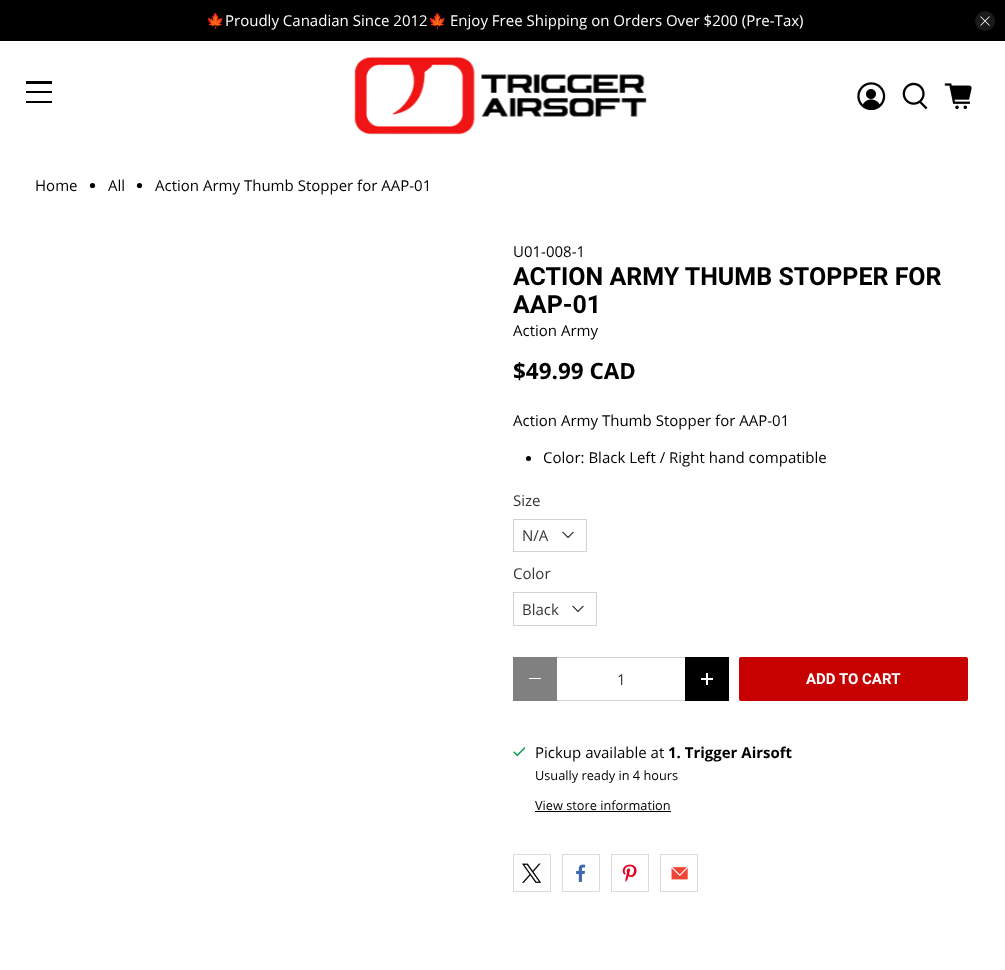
<svg xmlns="http://www.w3.org/2000/svg" width="1005" height="970" viewBox="0 0 1005 970">
  <rect width="100%" height="100%" fill="#ffffff"/>
  <rect x="0" y="0" width="1005" height="41" fill="#000000"/>
  <text x="206" y="26" font-family="Noto Color Emoji" font-size="15" fill="#ffffff">🍁</text>
  <text x="225" y="26" font-family="Open Sans" font-size="15" fill="#ffffff">Proudly Canadian Since 2012</text>
  <text x="428" y="26" font-family="Noto Color Emoji" font-size="15" fill="#ffffff">🍁</text>
  <text x="450" y="26" font-family="Open Sans" font-size="15" fill="#ffffff">Enjoy Free Shipping on Orders Over $200 (Pre-Tax)</text>
  <circle cx="985" cy="21" r="10" fill="#1a1a1a"/>
  <image x="980" y="16" width="10" height="10" href="img1.png"/>
  <rect x="26" y="81" width="26" height="3" fill="#000000"/>
  <rect x="26" y="91" width="26" height="2" fill="#000000"/>
  <rect x="26" y="101" width="26" height="2" fill="#000000"/>
  <image x="354" y="56" width="293" height="79" href="img2.png"/>
  <image x="857" y="82" width="29" height="28" href="img3.png"/>
  <image x="902" y="82" width="26" height="28" href="img4.png"/>
  <image x="944" y="83" width="28" height="27" href="img5.png"/>
  <text x="35" y="191" font-family="Open Sans" font-size="15" fill="#000000">Home</text>
  <circle cx="92.5" cy="185.5" r="2.6" fill="#000000"/>
  <text x="108" y="191" font-family="Open Sans" font-size="15" fill="#000000">All</text>
  <circle cx="139.5" cy="185.5" r="2.6" fill="#000000"/>
  <text x="155" y="191" font-family="Open Sans" font-size="15" fill="#000000">Action Army Thumb Stopper for AAP-01</text>
  <text x="513" y="257" font-family="Open Sans" font-size="15" fill="#000000">U01-008-1</text>
  <text x="513" y="285" font-family="Roboto" font-size="25" font-weight="bold" fill="#000000">ACTION ARMY THUMB STOPPER FOR</text>
  <text x="513" y="313" font-family="Roboto" font-size="25" font-weight="bold" fill="#000000">AAP-01</text>
  <text x="513" y="336" font-family="Open Sans" font-size="15" fill="#000000">Action Army</text>
  <text x="513" y="379" font-family="Open Sans" font-size="22.5" font-weight="bold" fill="#000000">$49.99 CAD</text>
  <text x="513" y="426" font-family="Open Sans" font-size="15" fill="#000000">Action Army Thumb Stopper for AAP-01</text>
  <circle cx="528.5" cy="458.5" r="2.5" fill="#000000"/>
  <text x="543" y="463" font-family="Open Sans" font-size="15" fill="#000000">Color: Black Left / Right hand compatible</text>
  <text x="513" y="506" font-family="Open Sans" font-size="15" fill="#363636">Size</text>
  <rect x="513.5" y="519.5" width="73" height="32" fill="none" stroke="#d3d3d3"/>
  <text x="522" y="541" font-family="Open Sans" font-size="15" fill="#363636">N/A</text>
  <image x="562" y="531" width="12" height="7" href="img6.png"/>
  <text x="513" y="579" font-family="Open Sans" font-size="15" fill="#363636">Color</text>
  <rect x="513.5" y="592.5" width="83" height="33" fill="none" stroke="#d3d3d3"/>
  <text x="522" y="615" font-family="Open Sans" font-size="15" fill="#363636">Black</text>
  <image x="572" y="605" width="12" height="7" href="img6.png"/>
  <rect x="513" y="657" width="44" height="44" fill="#808080"/>
  <rect x="529" y="678" width="12" height="1" fill="#ffffff"/>
  <rect x="557" y="657" width="128" height="1" fill="#d3d3d3"/>
  <rect x="557" y="700" width="128" height="1" fill="#d3d3d3"/>
  <text x="617" y="685" font-family="Open Sans" font-size="15" fill="#363636">1</text>
  <rect x="685" y="657" width="44" height="44" fill="#000000"/>
  <rect x="701" y="678" width="12" height="2" fill="#ffffff"/>
  <rect x="706" y="673" width="2" height="12" fill="#ffffff"/>
  <rect x="739" y="657" width="229" height="44" rx="2" fill="#c70000"/>
  <text x="806" y="684" font-family="Roboto" font-size="15" font-weight="bold" fill="#ffffff">ADD TO CART</text>
  <image x="513" y="747" width="12" height="10" href="img7.png"/>
  <text x="535" y="758" font-family="Open Sans" font-size="15" fill="#000000">Pickup available at</text>
  <text x="668" y="758" font-family="Open Sans" font-size="15" font-weight="bold" fill="#000000">1. Trigger Airsoft</text>
  <text x="535" y="780" font-family="Open Sans" font-size="12.75" fill="#000000">Usually ready in 4 hours</text>
  <text x="535" y="810" font-family="Open Sans" font-size="12.75" fill="#000000">View store information</text>
  <rect x="535" y="811" width="136" height="1" fill="#000000"/>
  <rect x="513.5" y="854.5" width="37" height="37" fill="none" stroke="#dbdbdb"/>
  <image x="522" y="863" width="19" height="20" href="img8.png"/>
  <rect x="562.5" y="854.5" width="37" height="37" fill="none" stroke="#dbdbdb"/>
  <image x="576" y="864" width="10" height="18" href="img9.png"/>
  <rect x="611.5" y="854.5" width="37" height="37" fill="none" stroke="#dbdbdb"/>
  <image x="622" y="864" width="15" height="18" href="img10.png"/>
  <rect x="660.5" y="854.5" width="37" height="37" fill="none" stroke="#dbdbdb"/>
  <image x="671" y="867" width="17" height="13" href="img11.png"/>
</svg>
